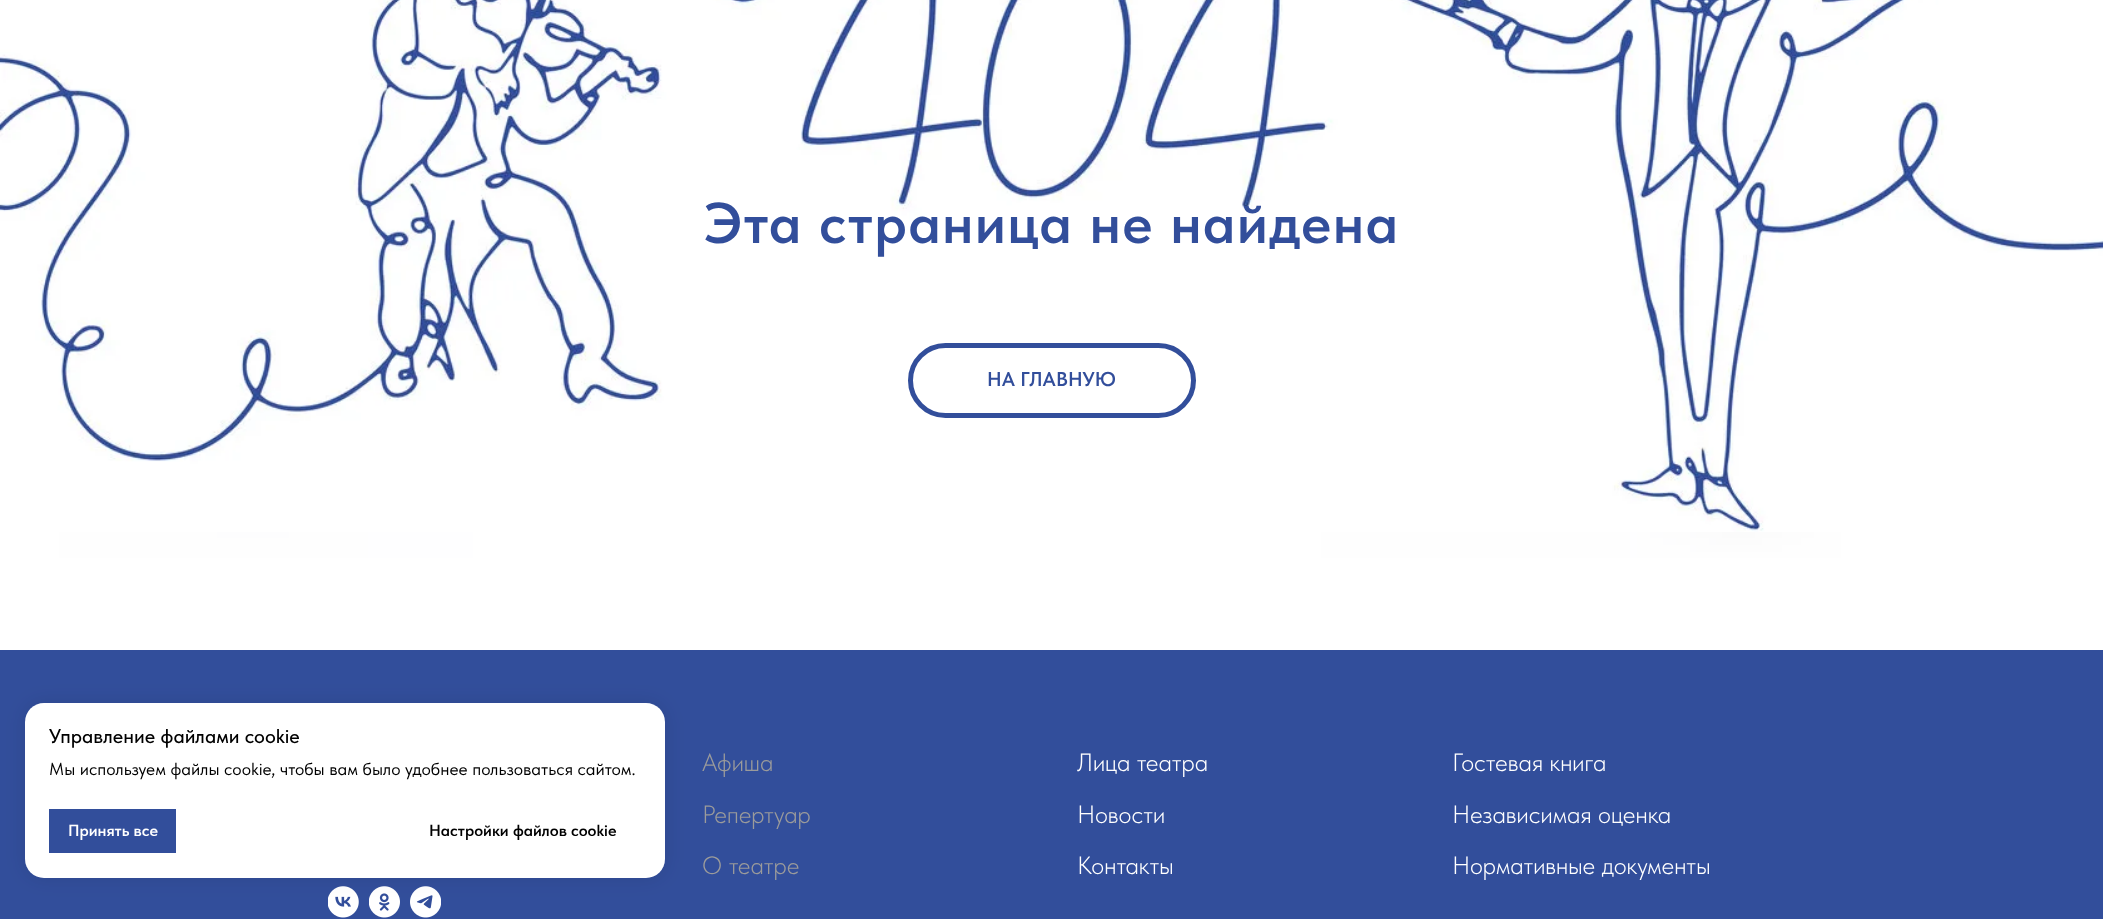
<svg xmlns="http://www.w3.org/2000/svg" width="2103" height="919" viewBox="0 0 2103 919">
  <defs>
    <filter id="blur1" x="-50%" y="-200%" width="200%" height="500%"><feGaussianBlur stdDeviation="9.5"/></filter>
  </defs>
  <rect width="100%" height="100%" fill="#324e9b"/>
  <image x="0" y="532" width="2103" height="118" href="img1.png"/>
  <image x="0" y="0" width="2103" height="532" href="img2.png"/>
  <text x="704" y="243" font-family="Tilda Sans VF" font-size="57.5" font-weight="600" letter-spacing="1.25" fill="#324e9b">Эта страница не найдена</text>
  <rect x="910.5" y="345.5" width="283" height="70" rx="35" fill="none" stroke="#324e9b" stroke-width="5"/>
  <text x="987" y="386" font-family="Tilda Sans VF" font-size="20" font-weight="600" fill="#324e9b">НА ГЛАВНУЮ</text>
  <image x="328" y="886" width="31" height="32" href="img3.png"/>
  <image x="369" y="886" width="31" height="32" href="img4.png"/>
  <image x="410" y="886" width="31" height="32" href="img5.png"/>
  <rect x="25" y="703" width="640" height="175" rx="19" fill="#000000" fill-opacity="0.1" filter="url(#blur1)"/>
  <rect x="25" y="703" width="640" height="175" rx="19" fill="#ffffff"/>
  <text x="49" y="743" font-family="Tilda Sans VF" font-size="20" font-weight="500" fill="#000000">Управление файлами cookie</text>
  <text x="49" y="775" font-family="Tilda Sans VF" font-size="17.5" fill="#000000">Мы используем файлы cookie, чтобы вам было удобнее пользоваться сайтом.</text>
  <rect x="49" y="809" width="127" height="44" fill="#324e9b"/>
  <text x="68" y="836" font-family="Tilda Sans VF" font-size="16.25" font-weight="600" fill="#ffffff">Принять все</text>
  <text x="429" y="836" font-family="Tilda Sans VF" font-size="16.25" font-weight="600" fill="#000000">Настройки файлов cookie</text>
  <text x="702" y="771" font-family="Tilda Sans VF" font-size="25" font-weight="300" fill="#9b9b9b">Афиша</text>
  <text x="702" y="823" font-family="Tilda Sans VF" font-size="25" font-weight="300" fill="#9b9b9b">Репертуар</text>
  <text x="702" y="874" font-family="Tilda Sans VF" font-size="25" font-weight="300" fill="#9b9b9b">О театре</text>
  <text x="1077" y="771" font-family="Tilda Sans VF" font-size="25" font-weight="300" fill="#ffffff">Лица театра</text>
  <text x="1077" y="823" font-family="Tilda Sans VF" font-size="25" font-weight="300" fill="#ffffff">Новости</text>
  <text x="1077" y="874" font-family="Tilda Sans VF" font-size="25" font-weight="300" fill="#ffffff">Контакты</text>
  <text x="1452" y="771" font-family="Tilda Sans VF" font-size="25" font-weight="300" fill="#ffffff">Гостевая книга</text>
  <text x="1452" y="823" font-family="Tilda Sans VF" font-size="25" font-weight="300" fill="#ffffff">Независимая оценка</text>
  <text x="1452" y="874" font-family="Tilda Sans VF" font-size="25" font-weight="300" fill="#ffffff">Нормативные документы</text>
</svg>
